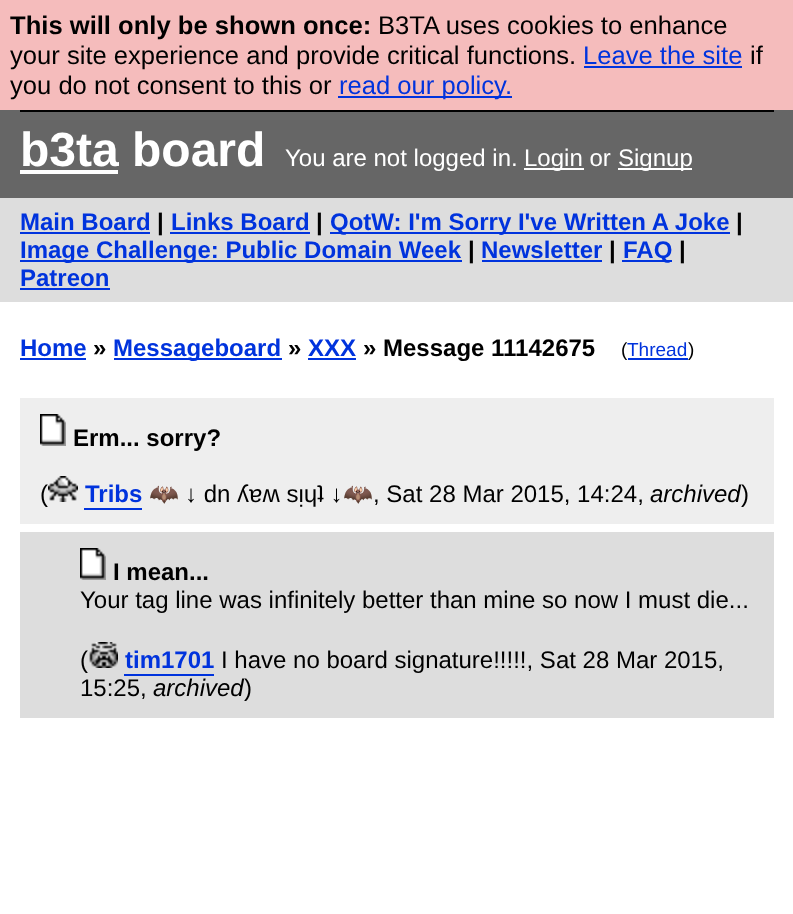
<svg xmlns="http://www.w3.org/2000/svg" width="793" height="914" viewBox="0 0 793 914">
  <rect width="100%" height="100%" fill="#ffffff"/>
  <rect x="0" y="110" width="793" height="88" fill="#666666"/>
  <rect x="21" y="21" width="752" height="90" fill="none" stroke="#000000" stroke-width="2"/>
  <rect x="0" y="0" width="793" height="110" fill="#f5bcbc"/>
  <text x="10" y="34" font-family="Liberation Sans" font-size="25.6" font-weight="bold" fill="#000000">This will only be shown once:</text>
  <text x="378" y="34" font-family="Liberation Sans" font-size="25.6" fill="#000000">B3TA uses cookies to enhance</text>
  <text x="10" y="64" font-family="Liberation Sans" font-size="25.6" fill="#000000">your site experience and provide critical functions.</text>
  <text x="583" y="64" font-family="Liberation Sans" font-size="25.6" fill="#0033dd">Leave the site</text>
  <rect x="584" y="66" width="158" height="2" fill="#0033dd"/>
  <text x="750" y="64" font-family="Liberation Sans" font-size="25.6" fill="#000000">if</text>
  <text x="10" y="94" font-family="Liberation Sans" font-size="25.6" fill="#000000">you do not consent to this or</text>
  <rect x="338" y="96" width="174" height="2" fill="#0033dd"/>
  <text x="339" y="94" font-family="Liberation Sans" font-size="25.6" fill="#0033dd">read our policy.</text>
  <text x="20" y="166" font-family="Liberation Sans" font-size="48" font-weight="bold" fill="#ffffff">b3ta board</text>
  <rect x="20" y="170" width="98" height="4" fill="#ffffff"/>
  <text x="285" y="166" font-family="Liberation Sans" font-size="24" fill="#ffffff">You are not logged in.</text>
  <rect x="524" y="168" width="60" height="2" fill="#ffffff"/>
  <text x="524" y="166" font-family="Liberation Sans" font-size="24" fill="#ffffff">Login or</text>
  <rect x="618" y="168" width="74" height="2" fill="#ffffff"/>
  <text x="618" y="166" font-family="Liberation Sans" font-size="24" fill="#ffffff">Signup</text>
  <rect x="0" y="198" width="793" height="104" fill="#dddddd"/>
  <text x="20" y="230" font-family="Liberation Sans" font-size="24" font-weight="bold" fill="#0033dd">Main Board</text>
  <rect x="20" y="232" width="130" height="2" fill="#0033dd"/>
  <text x="157" y="230" font-family="Liberation Sans" font-size="24" font-weight="bold" fill="#000000">|</text>
  <text x="171" y="230" font-family="Liberation Sans" font-size="24" font-weight="bold" fill="#0033dd">Links Board</text>
  <rect x="170" y="232" width="140" height="2" fill="#0033dd"/>
  <text x="316" y="230" font-family="Liberation Sans" font-size="24" font-weight="bold" fill="#000000">|</text>
  <rect x="330" y="232" width="400" height="2" fill="#0033dd"/>
  <text x="330" y="230" font-family="Liberation Sans" font-size="24" font-weight="bold" fill="#0033dd">QotW: I'm Sorry I've Written A Joke</text>
  <text x="736" y="230" font-family="Liberation Sans" font-size="24" font-weight="bold" fill="#000000">|</text>
  <rect x="20" y="260" width="442" height="2" fill="#0033dd"/>
  <text x="20" y="258" font-family="Liberation Sans" font-size="24" font-weight="bold" fill="#0033dd">Image Challenge: Public Domain Week</text>
  <text x="468" y="258" font-family="Liberation Sans" font-size="24" font-weight="bold" fill="#000000">|</text>
  <text x="481" y="258" font-family="Liberation Sans" font-size="24" font-weight="bold" fill="#0033dd">Newsletter</text>
  <rect x="482" y="260" width="120" height="2" fill="#0033dd"/>
  <text x="609" y="258" font-family="Liberation Sans" font-size="24" font-weight="bold" fill="#000000">|</text>
  <rect x="622" y="260" width="50" height="2" fill="#0033dd"/>
  <text x="623" y="258" font-family="Liberation Sans" font-size="24" font-weight="bold" fill="#0033dd">FAQ</text>
  <text x="679" y="258" font-family="Liberation Sans" font-size="24" font-weight="bold" fill="#000000">|</text>
  <text x="20" y="286" font-family="Liberation Sans" font-size="24" font-weight="bold" fill="#0033dd">Patreon</text>
  <rect x="20" y="288" width="90" height="2" fill="#0033dd"/>
  <text x="20" y="356" font-family="Liberation Sans" font-size="24" font-weight="bold" fill="#0033dd">Home</text>
  <rect x="20" y="358" width="66" height="2" fill="#0033dd"/>
  <text x="93" y="356" font-family="Liberation Sans" font-size="24" font-weight="bold" fill="#000000">»</text>
  <rect x="114" y="358" width="168" height="2" fill="#0033dd"/>
  <text x="113" y="356" font-family="Liberation Sans" font-size="24" font-weight="bold" fill="#0033dd">Messageboard</text>
  <text x="288" y="356" font-family="Liberation Sans" font-size="24" font-weight="bold" fill="#000000">»</text>
  <text x="308" y="356" font-family="Liberation Sans" font-size="24" font-weight="bold" fill="#0033dd">XXX</text>
  <rect x="308" y="358" width="48" height="2" fill="#0033dd"/>
  <text x="363" y="356" font-family="Liberation Sans" font-size="24" font-weight="bold" fill="#000000">» Message 11142675</text>
  <text x="621" y="356" font-family="Liberation Sans" font-size="19" fill="#000000">(</text>
  <rect x="628" y="358" width="60" height="2" fill="#0033dd"/>
  <text x="627" y="356" font-family="Liberation Sans" font-size="19" fill="#0033dd">Thread</text>
  <text x="688" y="356" font-family="Liberation Sans" font-size="19" fill="#000000">)</text>
  <rect x="20" y="398" width="754" height="126" fill="#eeeeee"/>
  <image x="40" y="414" width="26" height="32" href="img1.png"/>
  <text x="73" y="446" font-family="Liberation Sans" font-size="24" font-weight="bold" fill="#000000">Erm... sorry?</text>
  <text x="40" y="502" font-family="Liberation Sans" font-size="24" fill="#000000">(</text>
  <image x="48" y="476" width="30" height="26" href="img2.png"/>
  <text x="85" y="502" font-family="Liberation Sans" font-size="24" font-weight="bold" fill="#0033dd">Tribs</text>
  <rect x="84" y="508" width="58" height="2" fill="#0033dd"/>
  <text x="149" y="502" font-family="Noto Color Emoji" font-size="24" fill="#000000">🦇</text>
  <text x="185" y="502" font-family="Liberation Sans" font-size="24" fill="#000000">↓ dn ʎɐʍ sᴉɥʇ ↓</text>
  <text x="343" y="502" font-family="Noto Color Emoji" font-size="24" fill="#000000">🦇</text>
  <text x="373" y="502" font-family="Liberation Sans" font-size="24" fill="#000000">, Sat 28 Mar 2015, 14:24,</text>
  <text x="650" y="502" font-family="Liberation Sans" font-size="24" font-style="italic" fill="#000000">archived</text>
  <text x="741" y="502" font-family="Liberation Sans" font-size="24" fill="#000000">)</text>
  <rect x="20" y="532" width="754" height="186" fill="#dddddd"/>
  <image x="80" y="548" width="26" height="32" href="img3.png"/>
  <text x="113" y="580" font-family="Liberation Sans" font-size="24" font-weight="bold" fill="#000000">I mean...</text>
  <text x="80" y="608" font-family="Liberation Sans" font-size="24" fill="#000000">Your tag line was infinitely better than mine so now I must die...</text>
  <text x="80" y="668" font-family="Liberation Sans" font-size="24" fill="#000000">(</text>
  <image x="89" y="642" width="29" height="26" href="img4.png"/>
  <text x="125" y="668" font-family="Liberation Sans" font-size="24" font-weight="bold" fill="#0033dd">tim1701</text>
  <rect x="124" y="674" width="90" height="2" fill="#0033dd"/>
  <text x="221" y="668" font-family="Liberation Sans" font-size="24" fill="#000000">I have no board signature!!!!!, Sat 28 Mar 2015,</text>
  <text x="80" y="696" font-family="Liberation Sans" font-size="24" fill="#000000">15:25,</text>
  <text x="153" y="696" font-family="Liberation Sans" font-size="24" font-style="italic" fill="#000000">archived</text>
  <text x="244" y="696" font-family="Liberation Sans" font-size="24" fill="#000000">)</text>
</svg>
